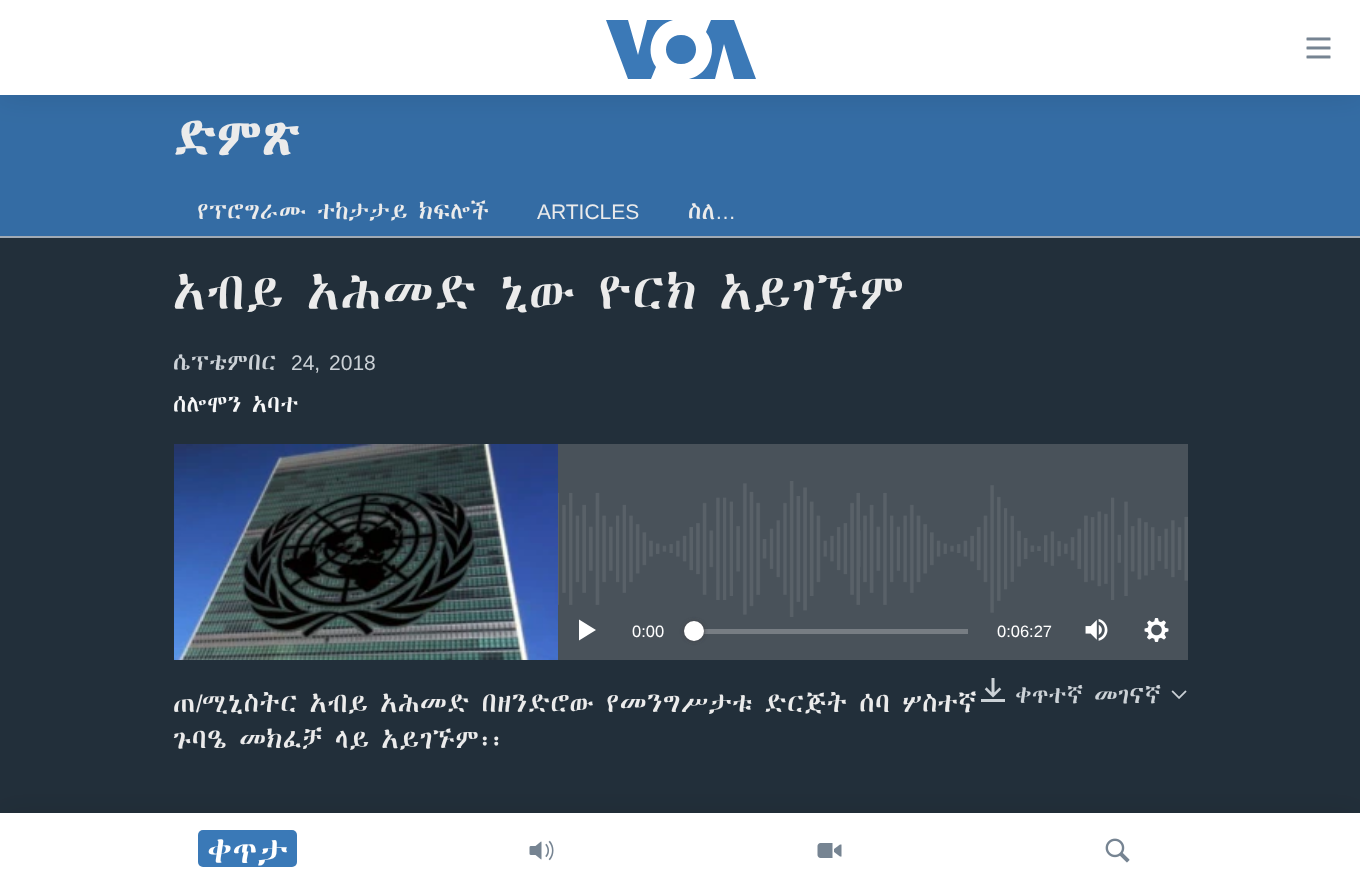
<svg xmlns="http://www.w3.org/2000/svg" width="1360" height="888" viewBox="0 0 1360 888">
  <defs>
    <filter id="blur1" x="-50%" y="-200%" width="200%" height="500%"><feGaussianBlur stdDeviation="2"/></filter>
    <filter id="blur2" x="-50%" y="-200%" width="200%" height="500%"><feGaussianBlur stdDeviation="15"/></filter>
  </defs>
  <rect width="100%" height="100%" fill="#346ca4"/>
  <text x="173" y="155" font-family="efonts" font-size="45.6" font-weight="bold" fill="#ebebeb">ድምጽ</text>
  <text x="197" y="219" font-family="efonts" font-size="21" fill="#ebebeb">የፕሮግራሙ ተከታታይ ክፍሎች</text>
  <text x="537" y="219" font-family="Liberation Sans" font-size="21" fill="#ebebeb">ARTICLES</text>
  <text x="688" y="219" font-family="efonts" font-size="21" fill="#ebebeb">ስለ</text>
  <text x="715" y="219" font-family="Liberation Sans" font-size="21" fill="#ebebeb">…</text>
  <rect x="0" y="238" width="1360" height="575" fill="#222f3a"/>
  <rect x="0" y="236" width="1360" height="2" fill="#a1aab4"/>
  <text x="173" y="309" font-family="efonts" font-size="45.6" fill="#ebebeb">አብይ አሕመድ ኒው ዮርክ አይገኙም</text>
  <text x="173" y="370" font-family="efonts" font-size="21" fill="#cbd1d6">ሴፕቴምበር</text>
  <text x="291" y="370" word-spacing="3" font-family="Liberation Sans" font-size="21" fill="#cbd1d6">24, 2018</text>
  <text x="173" y="412" font-family="efonts" font-size="21" fill="#f6f7f8">ሰሎሞን አባተ</text>
  <rect x="558" y="444" width="630" height="216" fill="#49525a"/>
  <image x="558" y="481" width="630" height="136" href="img1.png"/>
  <image x="174" y="444" width="384" height="216" href="img2.png"/>
  <path d="M579 640.5L596 630L579 619.5Z" fill="#ffffff"/>
  <text x="632" y="637" font-family="Liberation Sans" font-size="16.5" fill="#ffffff">0:00</text>
  <rect x="695" y="629" width="273" height="5" fill="#777d83"/>
  <rect x="684" y="621" width="20" height="20" rx="10" fill="#414144" filter="url(#blur1)"/>
  <circle cx="694" cy="631" r="10" fill="#ffffff"/>
  <text x="997" y="637" font-family="Liberation Sans" font-size="16.5" fill="#ffffff">0:06:27</text>
  <image x="1085" y="619" width="23" height="22" href="img3.png"/>
  <image x="1144" y="618" width="25" height="24" href="img4.png"/>
  <text x="173" y="712" font-family="efonts" font-size="24" fill="#ebebeb">ጠ</text>
  <text x="196" y="712" font-family="Liberation Sans" font-size="24" fill="#ebebeb">/</text>
  <text x="202" y="712" font-family="efonts" font-size="24" fill="#ebebeb">ሚኒስትር አብይ አሕመድ በዘንድሮው የመንግሥታቱ ድርጅት ሰባ ሦስተኛ</text>
  <text x="173" y="748" font-family="efonts" font-size="24" fill="#ebebeb">ጉባዔ መክፈቻ ላይ አይገኙም፡፡</text>
  <image x="981" y="678" width="24" height="24" href="img5.png"/>
  <text x="1015" y="703" font-family="efonts" font-size="21" fill="#cbd1d6">ቀጥተኛ መገናኛ</text>
  <image x="1171" y="690" width="16" height="9" href="img6.png"/>
  <rect x="0" y="0" width="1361" height="95" fill="#000000" fill-opacity="0.1" filter="url(#blur2)"/>
  <rect x="0" y="0" width="1360" height="95" fill="#ffffff"/>
  <path d="M656 67L651 79H628L606 20H628L638 55L647 20H673C653 25 644 50 656 67ZM681 35C661 35 661 64 681 64C701 64 701 35 681 35ZM712 49C712 64 702 76 689 79H715L724 44L734 79H756L734 20H711L706 32C710 37 712 43 712 49Z" fill="#3b79b7"/>
  <image x="1306" y="37" width="25" height="22" href="img7.png"/>
  <rect x="0" y="813" width="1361" height="75" fill="#000000" fill-opacity="0.1" filter="url(#blur2)"/>
  <rect x="0" y="813" width="1360" height="75" fill="#ffffff"/>
  <rect x="198" y="830" width="99" height="37" rx="5" fill="#3a79b7"/>
  <text x="207" y="863" font-family="efonts" font-size="31.5" fill="#ffffff">ቀጥታ</text>
  <image x="529" y="840" width="25" height="21" href="img8.png"/>
  <image x="817" y="843" width="25" height="15" href="img9.png"/>
  <image x="1105" y="838" width="25" height="25" href="img10.png"/>
</svg>
